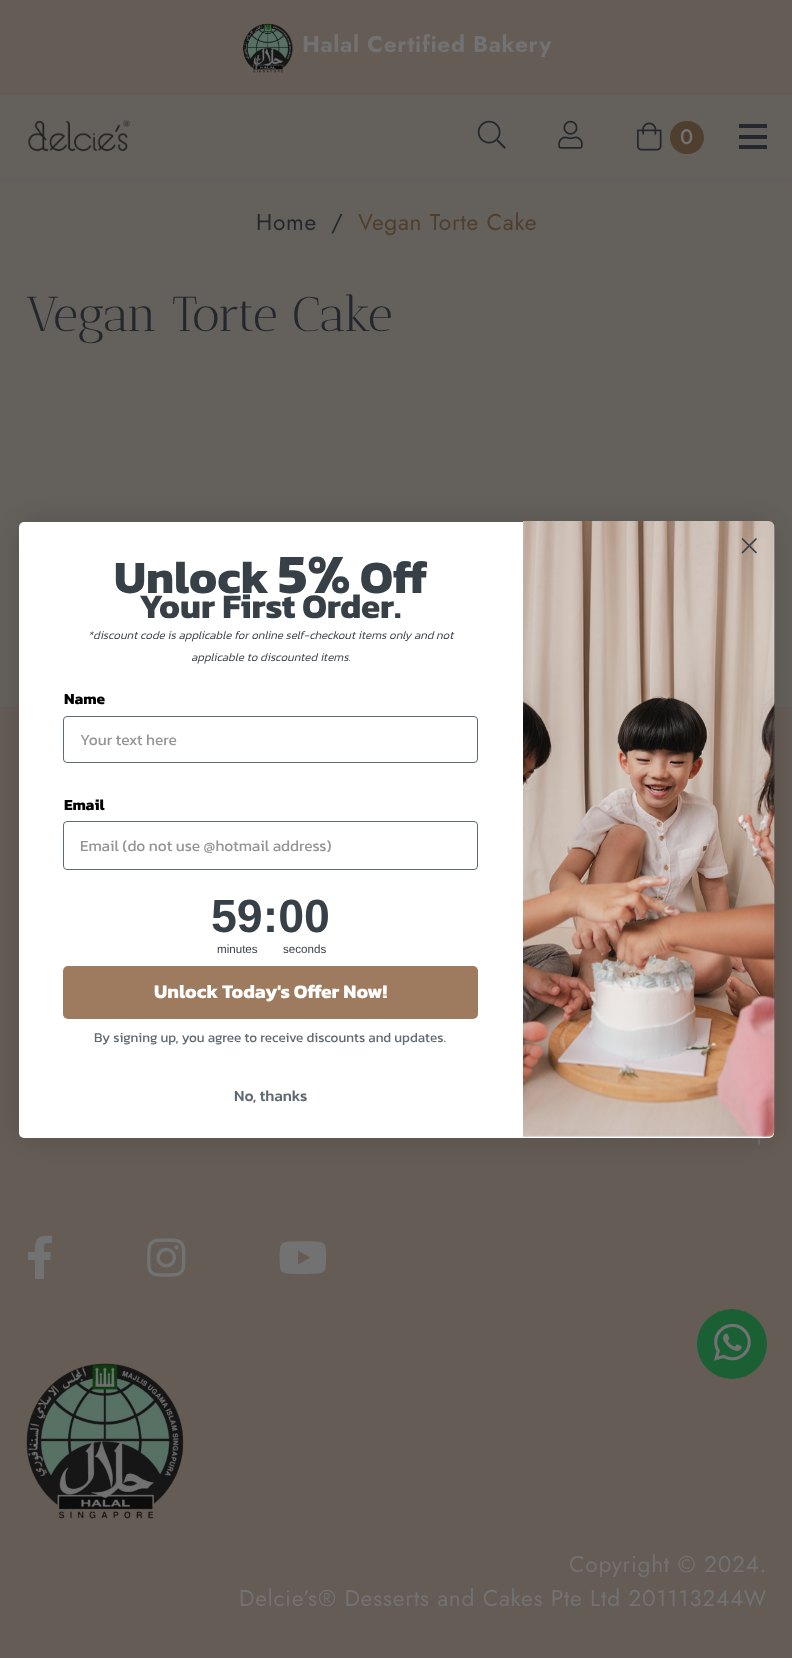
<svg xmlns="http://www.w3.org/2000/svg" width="792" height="1658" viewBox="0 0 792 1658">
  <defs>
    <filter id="blur1" x="-50%" y="-200%" width="200%" height="500%"><feGaussianBlur stdDeviation="14.5"/></filter>
  </defs>
  <rect width="100%" height="100%" fill="#64615c"/>
  <rect x="0" y="0" width="792" height="95" fill="#655c55"/>
  <image x="243" y="23" width="50" height="50" href="img1.png"/>
  <text x="302" y="52" font-family="Jost" font-size="22.75" font-weight="bold" letter-spacing="0.6" fill="#727272">Halal Certified Bakery</text>
  <text x="254" y="69" font-family="Jost" font-size="22.75" font-style="italic" letter-spacing="0.6" fill="#605852">t</text>
  <rect x="0" y="179" width="792" height="2" fill="#645e64"/>
  <image x="28" y="120" width="102" height="32" href="img2.png"/>
  <image x="477" y="120" width="29" height="29" href="img3.png"/>
  <image x="558" y="120" width="25" height="29" href="img4.png"/>
  <image x="637" y="122" width="25" height="29" href="img5.png"/>
  <rect x="670" y="121" width="34" height="33" rx="16.5" fill="#4f3f2f"/>
  <text x="680" y="144" font-family="Jost" font-size="21" font-weight="500" letter-spacing="1" fill="#727272">0</text>
  <rect x="739" y="124" width="28" height="4" fill="#24282e"/>
  <rect x="739" y="135" width="28" height="4" fill="#24282e"/>
  <rect x="739" y="145" width="28" height="4" fill="#24282e"/>
  <text x="256" y="230" font-family="Jost" font-size="22.75" letter-spacing="0.7" fill="#24282e">Home</text>
  <text x="331" y="230" font-family="Jost" font-size="22.75" letter-spacing="0.7" fill="#24282e">/</text>
  <text x="358" y="230" font-family="Jost" font-size="22.75" letter-spacing="0.7" fill="#4f3f2f">Vegan Torte Cake</text>
  <text x="26" y="331" font-family="Antic Didone" font-size="49" fill="#24282e">Vegan Torte Cake</text>
  <rect x="0" y="707" width="792" height="951" fill="#655c55"/>
  <image x="752" y="1138" width="14" height="7" href="img6.png"/>
  <path d="M50 1260H44V1279H35V1260H28V1252H35C35 1238 37 1235 52 1236V1243C43 1243 44 1244 44 1252H51Z" fill="#727272"/>
  <image x="147" y="1238" width="39" height="39" href="img7.png"/>
  <image x="279" y="1241" width="48" height="33" href="img8.png"/>
  <image x="26" y="1363" width="158" height="156" href="img9.png"/>
  <text x="569" y="1572" font-family="Jost" font-size="22.75" letter-spacing="0.7" fill="#727272">Copyright © 2024.</text>
  <text x="239" y="1606" font-family="Jost" font-size="22.75" letter-spacing="0.7" fill="#727272">Delcie’s® Desserts and Cakes Pte Ltd 201113244W</text>
  <rect x="19" y="522" width="755" height="616" rx="5" fill="#000000" fill-opacity="0.15" filter="url(#blur1)"/>
  <rect x="19" y="522" width="755" height="616" rx="5" fill="#ffffff"/>
  <image x="523" y="521" width="252" height="616" href="img10.png"/>
  <path d="M742.5 539L756 552.5M742.5 552.5L756 539Z" fill="none" stroke="#373f47" stroke-width="1.7" stroke-linecap="round" stroke-linejoin="round"/>
  <text x="114" y="593" font-family="Kanit" font-size="46.5" font-weight="bold" fill="#373f47">Unlock</text>
  <text x="278" y="593" font-family="Kanit" font-size="56" font-weight="bold" fill="#373f47">5%</text>
  <text x="360" y="593" font-family="Kanit" font-size="46.5" font-weight="bold" fill="#373f47">Off</text>
  <text x="139" y="618" font-family="Kanit" font-size="34.75" font-weight="bold" fill="#373f47">Your First Order.</text>
  <text x="88" y="639" font-family="Kanit" font-size="11.6" font-weight="300" font-style="italic" fill="#373f47">*discount code is applicable for online self-checkout items only and not</text>
  <text x="191" y="661" font-family="Kanit" font-size="11.6" font-weight="300" font-style="italic" fill="#373f47">applicable to discounted items.</text>
  <text x="64" y="704" font-family="Kanit" font-size="15.5" font-weight="bold" fill="#000000">Name</text>
  <rect x="63.5" y="716.5" width="414" height="46" rx="3.5" fill="none" stroke="#606a72"/>
  <text x="80" y="745" font-family="Kanit" font-size="15.5" fill="#949596">Your text here</text>
  <text x="64" y="810" font-family="Kanit" font-size="15.5" font-weight="bold" fill="#000000">Email</text>
  <rect x="63.5" y="821.5" width="414" height="48" rx="3.5" fill="none" stroke="#606a72"/>
  <text x="80" y="851" font-family="Kanit" font-size="15.5" fill="#949596">Email (do not use @hotmail address)</text>
  <text x="211" y="932" font-family="Liberation Sans" font-size="46.5" font-weight="bold" fill="#373f47">59:00</text>
  <text x="217" y="953" font-family="Liberation Sans" font-size="11.6" fill="#373f47">minutes</text>
  <text x="283" y="953" font-family="Liberation Sans" font-size="11.6" fill="#373f47">seconds</text>
  <rect x="63" y="966" width="415" height="53" rx="5" fill="#9e7b5e"/>
  <text x="154" y="998" font-family="Kanit" font-size="19.3" font-weight="bold" fill="#ffffff">Unlock Today's Offer Now!</text>
  <text x="94" y="1042" font-family="Kanit" font-size="13.5" fill="#606a72">By signing up, you agree to receive discounts and updates.</text>
  <text x="234" y="1101" font-family="Kanit" font-size="15.5" font-weight="500" fill="#606a72">No, thanks</text>
  <circle cx="732" cy="1344" r="35" fill="#1b6035"/>
  <image x="714" y="1323" width="37" height="38" href="img11.png"/>
</svg>
